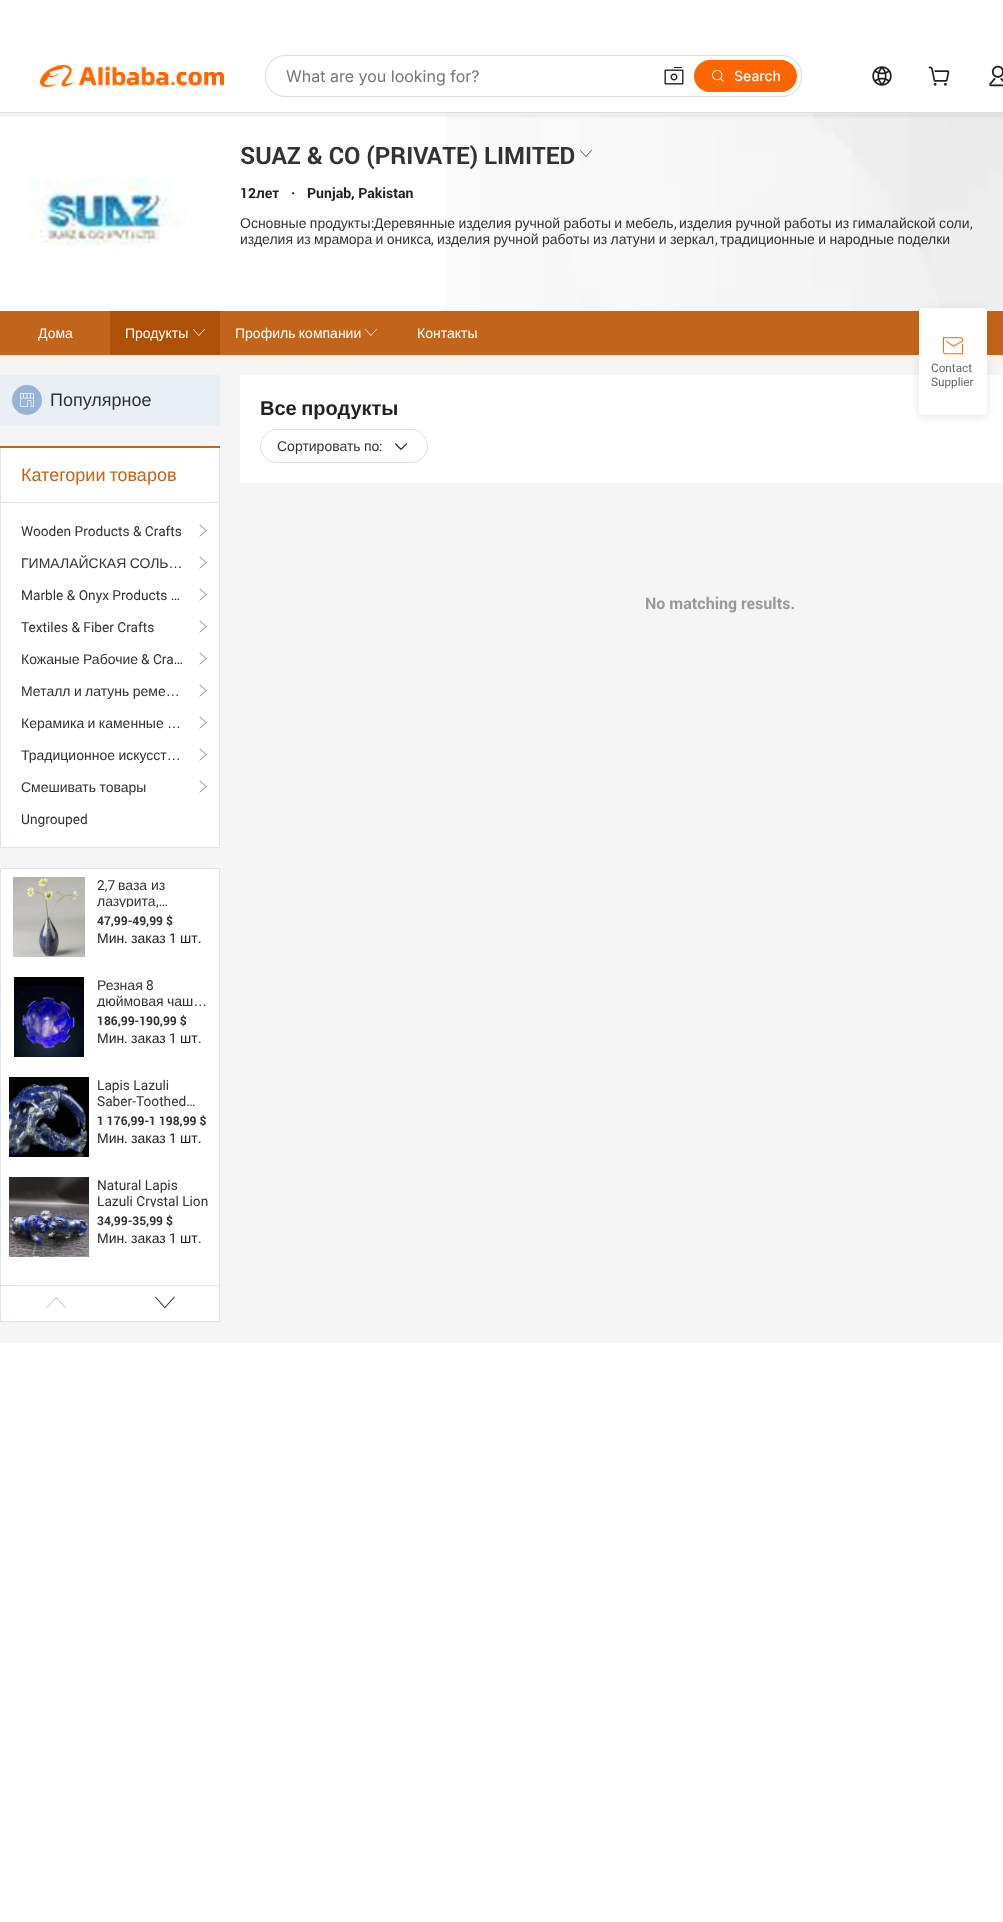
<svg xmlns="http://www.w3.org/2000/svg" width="1003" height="1922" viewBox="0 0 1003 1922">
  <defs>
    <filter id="blur1" x="-50%" y="-200%" width="200%" height="500%"><feGaussianBlur stdDeviation="1"/></filter>
    <clipPath id="clip1"><rect x="97" y="877" width="114" height="30"/></clipPath>
    <clipPath id="clip2"><rect x="97" y="977" width="114" height="30"/></clipPath>
    <clipPath id="clip3"><rect x="97" y="1177" width="114" height="30"/></clipPath>
    <filter id="blur2" x="-50%" y="-200%" width="200%" height="500%"><feGaussianBlur stdDeviation="5"/></filter>
  </defs>
  <rect width="100%" height="100%" fill="#ffffff"/>
  <image x="445" y="113" width="558" height="198" href="img7.png"/>
  <rect x="-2" y="113" width="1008" height="4" fill="#000000" fill-opacity="0.05" filter="url(#blur1)"/>
  <rect x="0" y="112" width="1003" height="1" fill="#dddddd"/>
  <image x="40" y="65" width="184" height="22" href="img1.png"/>
  <rect x="265" y="55" width="537" height="42" rx="20" fill="#dddddd"/>
  <rect x="266" y="56" width="535" height="40" rx="19" fill="#ffffff"/>
  <text x="286" y="82" font-family="Inter" font-size="16" fill="#767676">What are you looking for?</text>
  <image x="664" y="67" width="20" height="18" href="img2.png"/>
  <rect x="694" y="60" width="103" height="32" rx="16" fill="#ff6600"/>
  <image x="712" y="70" width="12" height="12" href="img3.png"/>
  <text x="734" y="81" font-family="Inter" font-size="14" font-weight="500" fill="#ffffff">Search</text>
  <image x="872" y="66" width="20" height="20" href="img4.png"/>
  <image x="928" y="66" width="22" height="20" href="img5.png"/>
  <image x="989" y="65" width="14" height="22" href="img6.png"/>
  <image x="26" y="177" width="160" height="70" href="img8.png"/>
  <text x="240" y="164" font-family="Roboto" font-size="24" font-weight="bold" fill="#333333">SUAZ &amp; CO (PRIVATE) LIMITED</text>
  <image x="580" y="150" width="12" height="7" href="img9.png"/>
  <text x="240" y="198" font-family="Roboto" font-size="14" font-weight="bold" fill="#222222">12</text>
  <text x="256" y="198" font-family="Liberation Sans" font-size="14" font-weight="bold" fill="#222222">лет</text>
  <text x="291" y="198" font-family="Roboto" font-size="14" font-weight="bold" fill="#222222">·</text>
  <text x="307" y="198" font-family="Roboto" font-size="14" font-weight="bold" fill="#222222">Punjab, Pakistan</text>
  <text x="240" y="228" word-spacing="-0.5" font-family="Liberation Sans" font-size="14" fill="#333333">Основные продукты</text>
  <text x="371" y="228" font-family="Roboto" font-size="14" fill="#333333">:</text>
  <text x="374" y="228" word-spacing="-0.5" font-family="Liberation Sans" font-size="14" fill="#333333">Деревянные изделия ручной работы и мебель</text>
  <text x="674" y="228" font-family="Roboto" font-size="14" fill="#333333">,</text>
  <text x="679" y="228" word-spacing="-0.5" font-family="Liberation Sans" font-size="14" fill="#333333">изделия ручной работы из гималайской соли</text>
  <text x="970" y="228" font-family="Roboto" font-size="14" fill="#333333">,</text>
  <text x="240" y="244" word-spacing="-0.5" font-family="Liberation Sans" font-size="14" fill="#333333">изделия из мрамора и оникса</text>
  <text x="431" y="244" font-family="Roboto" font-size="14" fill="#333333">,</text>
  <text x="437" y="244" word-spacing="-0.5" font-family="Liberation Sans" font-size="14" fill="#333333">изделия ручной работы из латуни и зеркал</text>
  <text x="715" y="244" font-family="Roboto" font-size="14" fill="#333333">,</text>
  <text x="720" y="244" word-spacing="-0.5" font-family="Liberation Sans" font-size="14" fill="#333333">традиционные и народные поделки</text>
  <rect x="0" y="311" width="1003" height="44" fill="#c2651a"/>
  <text x="38" y="338" font-family="Liberation Sans" font-size="14" fill="#ffffff">Дома</text>
  <rect x="110" y="311" width="110" height="44" fill="#ae5106"/>
  <text x="125" y="338" font-family="Liberation Sans" font-size="14" fill="#ffffff">Продукты</text>
  <image x="193" y="329" width="12" height="7" href="img10.png"/>
  <text x="235" y="338" word-spacing="-0.5" font-family="Liberation Sans" font-size="14" fill="#ffffff">Профиль компании</text>
  <image x="365" y="329" width="12" height="7" href="img11.png"/>
  <text x="417" y="338" font-family="Liberation Sans" font-size="14" fill="#ffffff">Контакты</text>
  <rect x="0" y="355" width="1003" height="988" fill="#f5f5f5"/>
  <rect x="0" y="375" width="220" height="51" fill="#e9eff5"/>
  <circle cx="27" cy="400" r="15" fill="#97b3d5"/>
  <image x="20" y="393" width="14" height="14" href="img12.png"/>
  <text x="50" y="406" font-family="Liberation Sans" font-size="18" fill="#333333">Популярное</text>
  <rect x="1" y="448" width="218" height="399" fill="#ffffff"/>
  <rect x="0" y="446" width="220" height="2" fill="#c2651a"/>
  <rect x="219" y="448" width="1" height="400" fill="#dbe3ef"/>
  <rect x="0" y="847" width="220" height="1" fill="#dbe3ef"/>
  <rect x="0" y="448" width="1" height="400" fill="#dbe3ef"/>
  <rect x="1" y="502" width="218" height="1" fill="#dbe3ef"/>
  <text x="21" y="481" word-spacing="-1" font-family="Liberation Sans" font-size="18" fill="#c2651a">Категории товаров</text>
  <text x="21" y="536" font-family="Roboto" font-size="14" fill="#333333">Wooden Products &amp; Crafts</text>
  <image x="199" y="524" width="8" height="13" href="img13.png"/>
  <text x="21" y="568" word-spacing="-0.5" font-family="Liberation Sans" font-size="14" fill="#333333">ГИМАЛАЙСКАЯ СОЛЬ…</text>
  <image x="199" y="556" width="8" height="13" href="img13.png"/>
  <text x="21" y="600" font-family="Roboto" font-size="14" fill="#333333">Marble &amp; Onyx Products …</text>
  <image x="199" y="588" width="8" height="13" href="img13.png"/>
  <text x="21" y="632" font-family="Roboto" font-size="14" fill="#333333">Textiles &amp; Fiber Crafts</text>
  <image x="199" y="620" width="8" height="13" href="img13.png"/>
  <text x="21" y="664" font-family="Liberation Sans" font-size="14" fill="#333333">Кожаные</text>
  <text x="83" y="664" font-family="Liberation Sans" font-size="14" fill="#333333">Рабочие</text>
  <text x="141" y="664" font-family="Roboto" font-size="14" fill="#333333">&amp; Cra…</text>
  <image x="199" y="652" width="8" height="13" href="img13.png"/>
  <text x="21" y="696" word-spacing="-0.5" font-family="Liberation Sans" font-size="14" fill="#333333">Металл и латунь реме…</text>
  <image x="199" y="684" width="8" height="13" href="img13.png"/>
  <text x="21" y="728" word-spacing="-0.5" font-family="Liberation Sans" font-size="14" fill="#333333">Керамика и каменные …</text>
  <image x="199" y="716" width="8" height="13" href="img13.png"/>
  <text x="21" y="760" word-spacing="-0.5" font-family="Liberation Sans" font-size="14" fill="#333333">Традиционное искусст…</text>
  <image x="199" y="748" width="8" height="13" href="img13.png"/>
  <text x="21" y="792" word-spacing="-0.5" font-family="Liberation Sans" font-size="14" fill="#333333">Смешивать товары</text>
  <image x="199" y="780" width="8" height="13" href="img13.png"/>
  <text x="21" y="824" font-family="Roboto" font-size="14" fill="#333333">Ungrouped</text>
  <rect x="0.5" y="868.5" width="219" height="453" fill="#ffffff" stroke="#dbe3ef"/>
  <image x="13" y="877" width="72" height="80" href="img14.png"/>
  <text x="97" y="890" font-family="Roboto" font-size="14" fill="#333333">2,7</text>
  <text x="118" y="890" font-family="Liberation Sans" font-size="14" fill="#333333">ваза из</text>
  <g clip-path="url(#clip1)">
    <text x="97" y="906" font-family="Liberation Sans" font-size="14" fill="#333333">лазурита</text>
  </g>
  <text x="156" y="906" font-family="Roboto" font-size="14" fill="#333333">,…</text>
  <text x="97" y="925" font-family="Roboto" font-size="12" font-weight="bold" fill="#333333">47,99-49,99 $</text>
  <text x="97" y="943" font-family="Liberation Sans" font-size="14" fill="#222222">Мин</text>
  <text x="124" y="943" font-family="Roboto" font-size="14" fill="#222222">.</text>
  <text x="131" y="943" font-family="Liberation Sans" font-size="14" fill="#222222">заказ</text>
  <text x="169" y="943" font-family="Roboto" font-size="14" fill="#222222">1</text>
  <text x="180" y="943" font-family="Liberation Sans" font-size="14" fill="#222222">шт</text>
  <text x="198" y="943" font-family="Roboto" font-size="14" fill="#222222">.</text>
  <image x="14" y="977" width="70" height="80" href="img15.png"/>
  <text x="97" y="990" font-family="Liberation Sans" font-size="14" fill="#333333">Резная</text>
  <text x="146" y="990" font-family="Roboto" font-size="14" fill="#333333">8</text>
  <g clip-path="url(#clip2)">
    <text x="97" y="1006" word-spacing="-0.5" font-family="Liberation Sans" font-size="14" fill="#333333">дюймовая чаш…</text>
  </g>
  <text x="97" y="1025" font-family="Roboto" font-size="12" font-weight="bold" fill="#333333">186,99-190,99 $</text>
  <text x="97" y="1043" font-family="Liberation Sans" font-size="14" fill="#222222">Мин</text>
  <text x="124" y="1043" font-family="Roboto" font-size="14" fill="#222222">.</text>
  <text x="131" y="1043" font-family="Liberation Sans" font-size="14" fill="#222222">заказ</text>
  <text x="169" y="1043" font-family="Roboto" font-size="14" fill="#222222">1</text>
  <text x="180" y="1043" font-family="Liberation Sans" font-size="14" fill="#222222">шт</text>
  <text x="198" y="1043" font-family="Roboto" font-size="14" fill="#222222">.</text>
  <image x="9" y="1077" width="80" height="80" href="img16.png"/>
  <text x="97" y="1090" font-family="Roboto" font-size="14" fill="#333333">Lapis Lazuli</text>
  <text x="97" y="1106" font-family="Roboto" font-size="14" fill="#333333">Saber-Toothed…</text>
  <text x="97" y="1125" font-family="Roboto" font-size="12" font-weight="bold" fill="#333333">1 176,99-1 198,99 $</text>
  <text x="97" y="1143" font-family="Liberation Sans" font-size="14" fill="#222222">Мин</text>
  <text x="124" y="1143" font-family="Roboto" font-size="14" fill="#222222">.</text>
  <text x="131" y="1143" font-family="Liberation Sans" font-size="14" fill="#222222">заказ</text>
  <text x="169" y="1143" font-family="Roboto" font-size="14" fill="#222222">1</text>
  <text x="180" y="1143" font-family="Liberation Sans" font-size="14" fill="#222222">шт</text>
  <text x="198" y="1143" font-family="Roboto" font-size="14" fill="#222222">.</text>
  <image x="9" y="1177" width="80" height="80" href="img17.png"/>
  <text x="97" y="1190" font-family="Roboto" font-size="14" fill="#333333">Natural Lapis</text>
  <g clip-path="url(#clip3)">
    <text x="97" y="1206" font-family="Roboto" font-size="14" fill="#333333">Lazuli Crystal Lion</text>
  </g>
  <text x="97" y="1225" font-family="Roboto" font-size="12" font-weight="bold" fill="#333333">34,99-35,99 $</text>
  <text x="97" y="1243" font-family="Liberation Sans" font-size="14" fill="#222222">Мин</text>
  <text x="124" y="1243" font-family="Roboto" font-size="14" fill="#222222">.</text>
  <text x="131" y="1243" font-family="Liberation Sans" font-size="14" fill="#222222">заказ</text>
  <text x="169" y="1243" font-family="Roboto" font-size="14" fill="#222222">1</text>
  <text x="180" y="1243" font-family="Liberation Sans" font-size="14" fill="#222222">шт</text>
  <text x="198" y="1243" font-family="Roboto" font-size="14" fill="#222222">.</text>
  <rect x="1" y="1285" width="218" height="1" fill="#dbe3ef"/>
  <image x="46" y="1296" width="20" height="13" href="img18.png"/>
  <image x="155" y="1296" width="20" height="13" href="img19.png"/>
  <rect x="240" y="375" width="763" height="108" fill="#ffffff"/>
  <text x="260" y="415" word-spacing="-1" font-family="Liberation Sans" font-size="20" font-weight="bold" fill="#222222">Все продукты</text>
  <rect x="260.5" y="429.5" width="167" height="33" rx="16.5" fill="none" stroke="#dddddd"/>
  <text x="277" y="451" word-spacing="-0.5" font-family="Liberation Sans" font-size="14" fill="#333333">Сортировать по</text>
  <text x="379" y="451" font-family="Roboto" font-size="14" fill="#333333">:</text>
  <image x="394" y="443" width="14" height="7" href="img20.png"/>
  <text x="645" y="609" font-family="Roboto" font-size="16" font-weight="bold" fill="#999999">No matching results.</text>
  <rect x="919" y="310" width="68" height="107" rx="4" fill="#000000" fill-opacity="0.1" filter="url(#blur2)"/>
  <rect x="919" y="308" width="68" height="107" rx="4" fill="#ffffff"/>
  <image x="943" y="337" width="20" height="18" href="img21.png"/>
  <text x="931" y="372" font-family="Roboto" font-size="12" fill="#666666">Contact</text>
  <text x="931" y="386" font-family="Roboto" font-size="12" fill="#666666">Supplier</text>
</svg>
